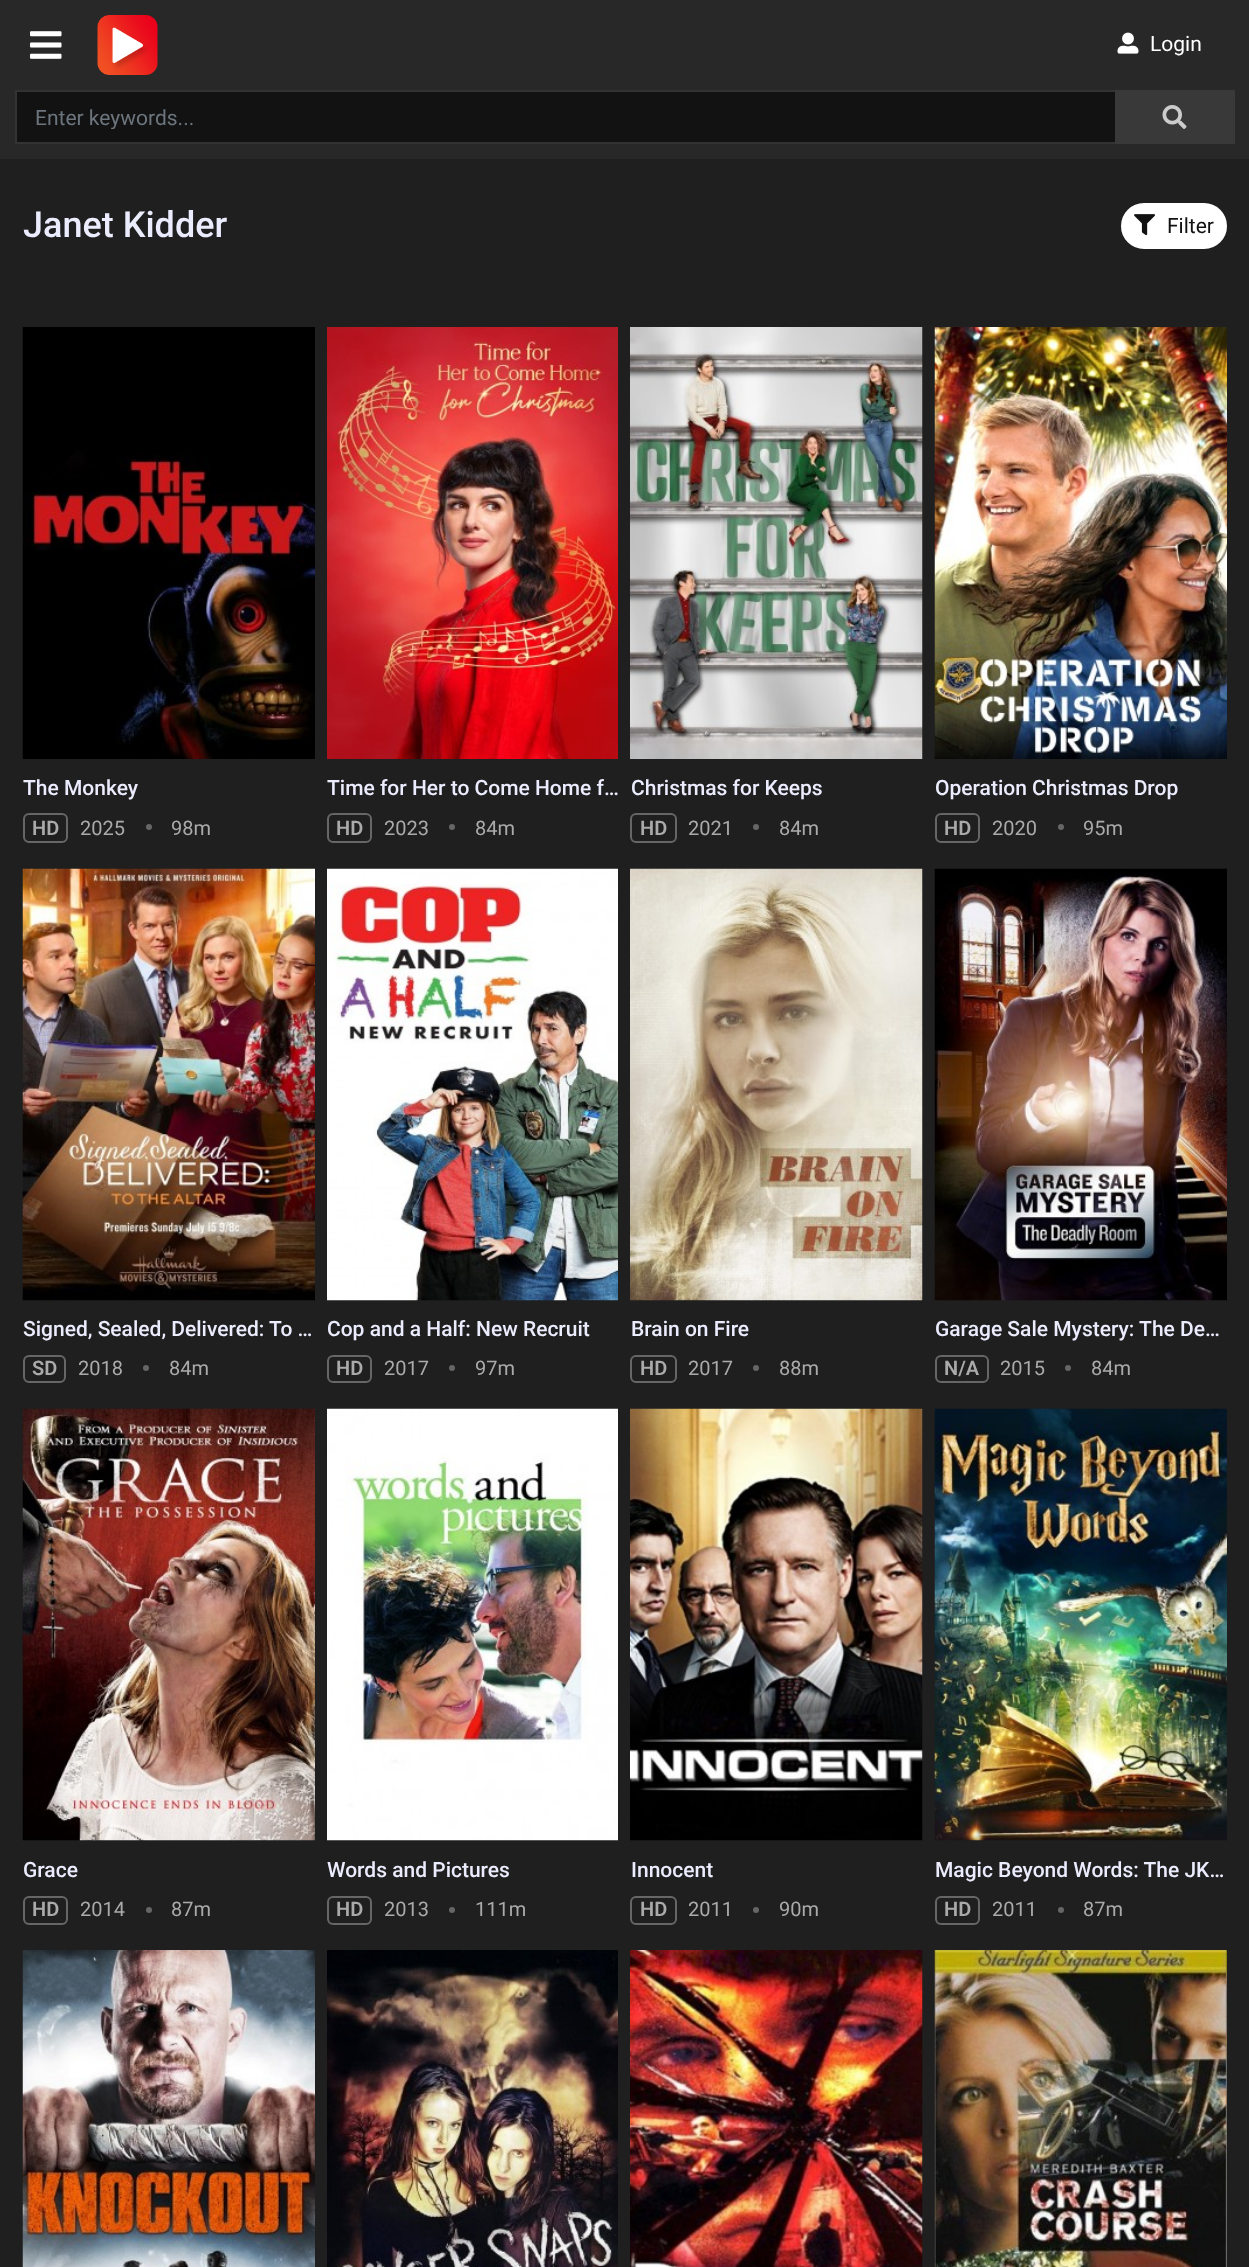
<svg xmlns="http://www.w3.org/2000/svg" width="1249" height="2267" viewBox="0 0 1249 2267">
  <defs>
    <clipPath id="clip1"><rect x="35" y="105" width="1003" height="24"/></clipPath>
  </defs>
  <rect width="100%" height="100%" fill="#1f1f1f"/>
  <rect x="0" y="0" width="1249" height="159" fill="#282828"/>
  <image x="30" y="31" width="32" height="28" href="img1.png"/>
  <image x="97" y="15" width="61" height="60" href="img2.png"/>
  <image x="1117" y="32" width="22" height="22" href="img3.png"/>
  <text x="1150" y="51" font-family="Roboto" font-size="21" fill="#ffffff">Login</text>
  <rect x="17" y="92" width="1098" height="50" fill="#121212"/>
  <rect x="16" y="91" width="1218" height="52" fill="none" stroke="#333333" stroke-width="2"/>
  <g clip-path="url(#clip1)">
    <text x="35" y="125" font-family="Roboto" font-size="21" fill="#6c757d">Enter keywords...</text>
  </g>
  <rect x="1115" y="90" width="120" height="54" fill="#393939"/>
  <image x="1162" y="105" width="25" height="24" href="img4.png"/>
  <text x="23" y="237" font-family="Roboto" font-size="36" font-weight="500" fill="#ececff">Janet Kidder</text>
  <rect x="1122" y="204" width="104" height="44" rx="22" fill="#ffffff" stroke="#ffffff" stroke-width="2"/>
  <image x="1134" y="214" width="21" height="22" href="img5.png"/>
  <text x="1167" y="233" font-family="Roboto" font-size="21" fill="#111111">Filter</text>
  <image x="22" y="327" width="293" height="432" href="img6.png"/>
  <text x="23" y="795" font-family="Roboto" font-size="21" font-weight="500" fill="#ececff">The Monkey</text>
  <rect x="24" y="814" width="43" height="28" rx="5" fill="none" stroke="#666666" stroke-width="2"/>
  <text x="32" y="835" font-family="Roboto" font-size="20" font-weight="600" fill="#aaaaaa">HD</text>
  <text x="80" y="835" font-family="Roboto" font-size="20" fill="#aaaaaa">2025</text>
  <circle cx="149" cy="827" r="3" fill="#666666"/>
  <text x="171" y="835" font-family="Roboto" font-size="20" fill="#aaaaaa">98m</text>
  <image x="327" y="327" width="291" height="432" href="img7.png"/>
  <text x="327" y="795" font-family="Roboto" font-size="21" font-weight="500" fill="#ececff">Time for Her to Come Home f…</text>
  <rect x="328" y="814" width="43" height="28" rx="5" fill="none" stroke="#666666" stroke-width="2"/>
  <text x="336" y="835" font-family="Roboto" font-size="20" font-weight="600" fill="#aaaaaa">HD</text>
  <text x="384" y="835" font-family="Roboto" font-size="20" fill="#aaaaaa">2023</text>
  <circle cx="452" cy="827" r="3" fill="#666666"/>
  <text x="475" y="835" font-family="Roboto" font-size="20" fill="#aaaaaa">84m</text>
  <image x="630" y="327" width="293" height="432" href="img8.png"/>
  <text x="631" y="795" font-family="Roboto" font-size="21" font-weight="500" fill="#ececff">Christmas for Keeps</text>
  <rect x="631" y="814" width="45" height="28" rx="5" fill="none" stroke="#666666" stroke-width="2"/>
  <text x="640" y="835" font-family="Roboto" font-size="20" font-weight="600" fill="#aaaaaa">HD</text>
  <text x="688" y="835" font-family="Roboto" font-size="20" fill="#aaaaaa">2021</text>
  <circle cx="756" cy="827" r="3" fill="#666666"/>
  <text x="779" y="835" font-family="Roboto" font-size="20" fill="#aaaaaa">84m</text>
  <image x="934" y="327" width="293" height="432" href="img9.png"/>
  <text x="935" y="795" font-family="Roboto" font-size="21" font-weight="500" fill="#ececff">Operation Christmas Drop</text>
  <rect x="936" y="814" width="43" height="28" rx="5" fill="none" stroke="#666666" stroke-width="2"/>
  <text x="944" y="835" font-family="Roboto" font-size="20" font-weight="600" fill="#aaaaaa">HD</text>
  <text x="992" y="835" font-family="Roboto" font-size="20" fill="#aaaaaa">2020</text>
  <circle cx="1061" cy="827" r="3" fill="#666666"/>
  <text x="1083" y="835" font-family="Roboto" font-size="20" fill="#aaaaaa">95m</text>
  <image x="22" y="868" width="293" height="433" href="img10.png"/>
  <text x="23" y="1336" font-family="Roboto" font-size="21" font-weight="500" fill="#ececff">Signed, Sealed, Delivered: To …</text>
  <rect x="24" y="1356" width="41" height="26" rx="5" fill="none" stroke="#666666" stroke-width="2"/>
  <text x="32" y="1375" font-family="Roboto" font-size="20" font-weight="600" fill="#aaaaaa">SD</text>
  <text x="78" y="1375" font-family="Roboto" font-size="20" fill="#aaaaaa">2018</text>
  <circle cx="146" cy="1368" r="3" fill="#666666"/>
  <text x="169" y="1375" font-family="Roboto" font-size="20" fill="#aaaaaa">84m</text>
  <image x="327" y="868" width="291" height="433" href="img11.png"/>
  <text x="327" y="1336" font-family="Roboto" font-size="21" font-weight="500" fill="#ececff">Cop and a Half: New Recruit</text>
  <rect x="328" y="1356" width="43" height="26" rx="5" fill="none" stroke="#666666" stroke-width="2"/>
  <text x="336" y="1375" font-family="Roboto" font-size="20" font-weight="600" fill="#aaaaaa">HD</text>
  <text x="384" y="1375" font-family="Roboto" font-size="20" fill="#aaaaaa">2017</text>
  <circle cx="452" cy="1368" r="3" fill="#666666"/>
  <text x="475" y="1375" font-family="Roboto" font-size="20" fill="#aaaaaa">97m</text>
  <image x="630" y="868" width="293" height="433" href="img12.png"/>
  <text x="631" y="1336" font-family="Roboto" font-size="21" font-weight="500" fill="#ececff">Brain on Fire</text>
  <rect x="631" y="1356" width="45" height="26" rx="5" fill="none" stroke="#666666" stroke-width="2"/>
  <text x="640" y="1375" font-family="Roboto" font-size="20" font-weight="600" fill="#aaaaaa">HD</text>
  <text x="688" y="1375" font-family="Roboto" font-size="20" fill="#aaaaaa">2017</text>
  <circle cx="756" cy="1368" r="3" fill="#666666"/>
  <text x="779" y="1375" font-family="Roboto" font-size="20" fill="#aaaaaa">88m</text>
  <image x="934" y="868" width="293" height="433" href="img13.png"/>
  <text x="935" y="1336" font-family="Roboto" font-size="21" font-weight="500" fill="#ececff">Garage Sale Mystery: The De…</text>
  <rect x="936" y="1356" width="52" height="26" rx="5" fill="none" stroke="#666666" stroke-width="2"/>
  <text x="944" y="1375" font-family="Roboto" font-size="20" font-weight="600" fill="#aaaaaa">N/A</text>
  <text x="1000" y="1375" font-family="Roboto" font-size="20" fill="#aaaaaa">2015</text>
  <circle cx="1068" cy="1368" r="3" fill="#666666"/>
  <text x="1091" y="1375" font-family="Roboto" font-size="20" fill="#aaaaaa">84m</text>
  <image x="22" y="1408" width="293" height="433" href="img14.png"/>
  <text x="23" y="1877" font-family="Roboto" font-size="21" font-weight="500" fill="#ececff">Grace</text>
  <rect x="24" y="1897" width="43" height="27" rx="5" fill="none" stroke="#666666" stroke-width="2"/>
  <text x="32" y="1916" font-family="Roboto" font-size="20" font-weight="600" fill="#aaaaaa">HD</text>
  <text x="80" y="1916" font-family="Roboto" font-size="20" fill="#aaaaaa">2014</text>
  <circle cx="149" cy="1910" r="3" fill="#666666"/>
  <text x="171" y="1916" font-family="Roboto" font-size="20" fill="#aaaaaa">87m</text>
  <image x="327" y="1408" width="291" height="433" href="img15.png"/>
  <text x="327" y="1877" font-family="Roboto" font-size="21" font-weight="500" fill="#ececff">Words and Pictures</text>
  <rect x="328" y="1897" width="43" height="27" rx="5" fill="none" stroke="#666666" stroke-width="2"/>
  <text x="336" y="1916" font-family="Roboto" font-size="20" font-weight="600" fill="#aaaaaa">HD</text>
  <text x="384" y="1916" font-family="Roboto" font-size="20" fill="#aaaaaa">2013</text>
  <circle cx="452" cy="1910" r="3" fill="#666666"/>
  <text x="475" y="1916" font-family="Roboto" font-size="20" fill="#aaaaaa">111m</text>
  <image x="630" y="1408" width="293" height="433" href="img16.png"/>
  <text x="631" y="1877" font-family="Roboto" font-size="21" font-weight="500" fill="#ececff">Innocent</text>
  <rect x="631" y="1897" width="45" height="27" rx="5" fill="none" stroke="#666666" stroke-width="2"/>
  <text x="640" y="1916" font-family="Roboto" font-size="20" font-weight="600" fill="#aaaaaa">HD</text>
  <text x="688" y="1916" font-family="Roboto" font-size="20" fill="#aaaaaa">2011</text>
  <circle cx="756" cy="1910" r="3" fill="#666666"/>
  <text x="779" y="1916" font-family="Roboto" font-size="20" fill="#aaaaaa">90m</text>
  <image x="934" y="1408" width="293" height="433" href="img17.png"/>
  <text x="935" y="1877" font-family="Roboto" font-size="21" font-weight="500" fill="#ececff">Magic Beyond Words: The JK…</text>
  <rect x="936" y="1897" width="43" height="27" rx="5" fill="none" stroke="#666666" stroke-width="2"/>
  <text x="944" y="1916" font-family="Roboto" font-size="20" font-weight="600" fill="#aaaaaa">HD</text>
  <text x="992" y="1916" font-family="Roboto" font-size="20" fill="#aaaaaa">2011</text>
  <circle cx="1061" cy="1910" r="3" fill="#666666"/>
  <text x="1083" y="1916" font-family="Roboto" font-size="20" fill="#aaaaaa">87m</text>
  <image x="22" y="1950" width="293" height="317" href="img18.png"/>
  <image x="327" y="1950" width="291" height="317" href="img19.png"/>
  <image x="630" y="1950" width="293" height="317" href="img20.png"/>
  <image x="934" y="1950" width="293" height="317" href="img21.png"/>
</svg>
